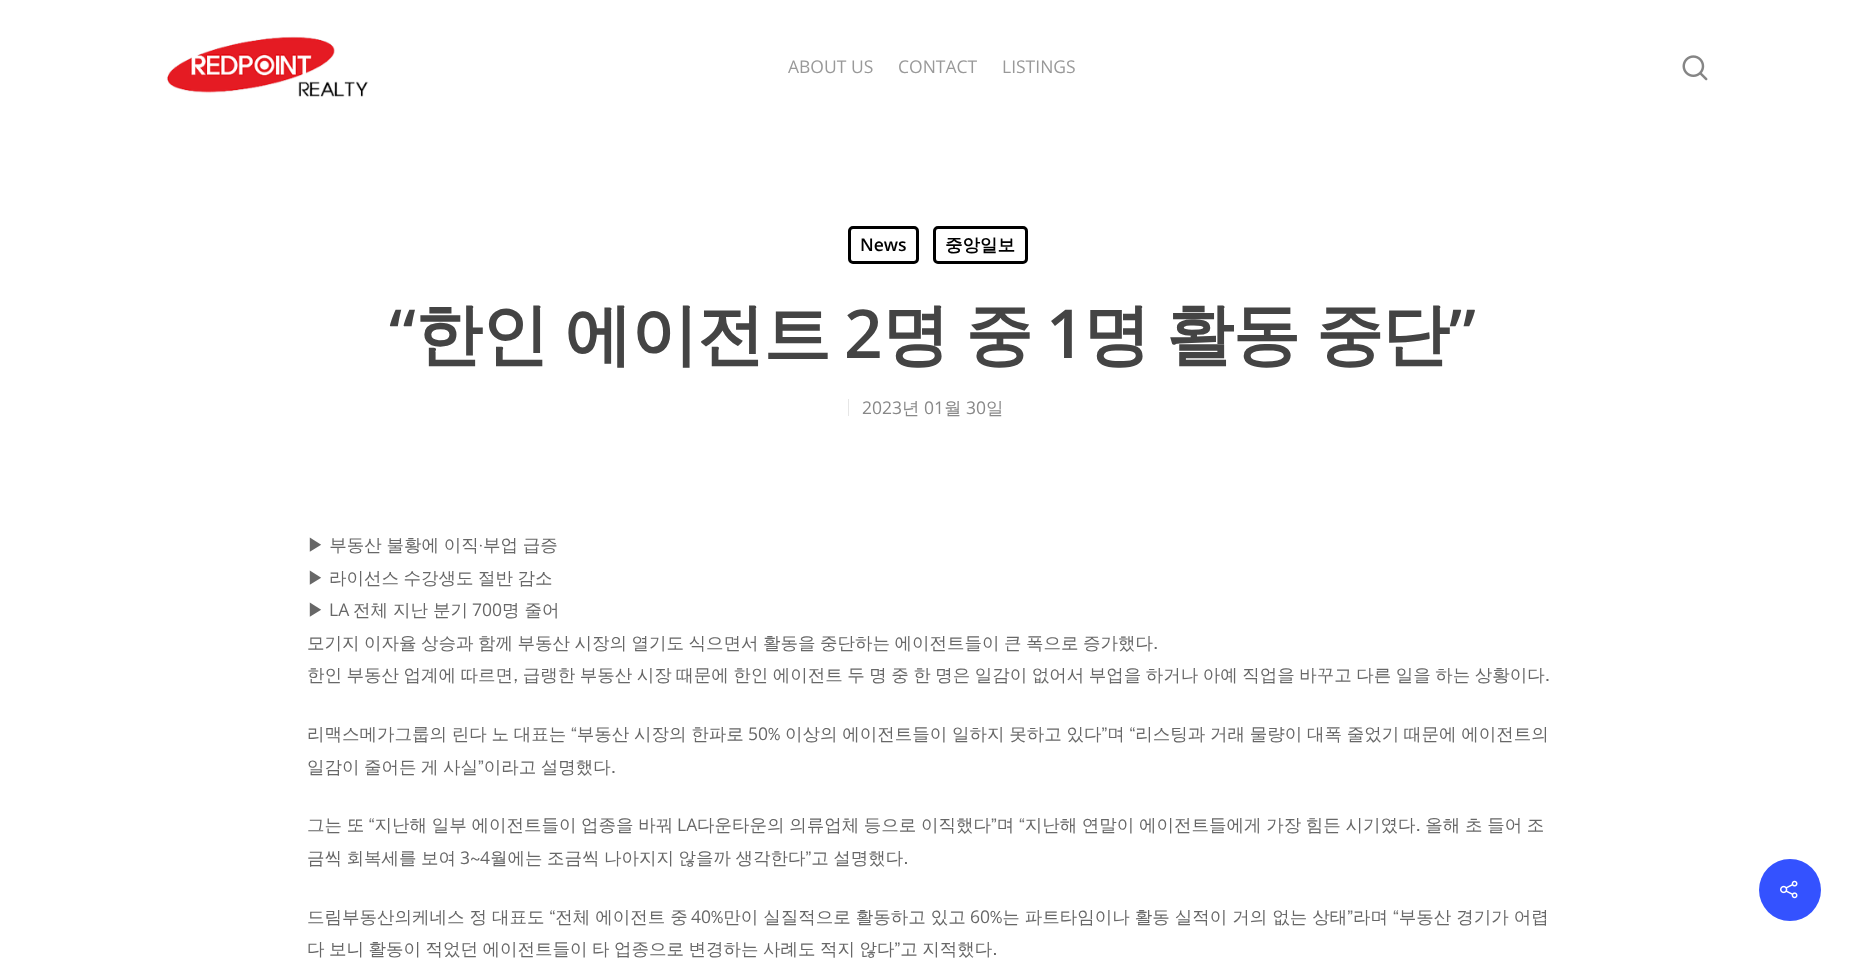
<svg xmlns="http://www.w3.org/2000/svg" width="1863" height="963" viewBox="0 0 1863 963">
  <rect width="100%" height="100%" fill="#ffffff"/>
  <image x="166" y="36" width="203" height="61" href="img1.png"/>
  <text x="788" y="73" font-family="Open Sans" font-size="17.5" fill="#999999">ABOUT US</text>
  <text x="898" y="73" font-family="Open Sans" font-size="17.5" fill="#999999">CONTACT</text>
  <text x="1002" y="73" font-family="Open Sans" font-size="17.5" fill="#999999">LISTINGS</text>
  <image x="1682" y="55" width="26" height="26" href="img2.png"/>
  <rect x="849.5" y="227.5" width="68" height="35" rx="3.5" fill="none" stroke="#000000" stroke-width="3"/>
  <text x="860" y="251" font-family="Open Sans" font-size="17.5" font-weight="600" fill="#000000">News</text>
  <rect x="934.5" y="227.5" width="92" height="35" rx="3.5" fill="none" stroke="#000000" stroke-width="3"/>
  <text x="945" y="251" font-family="WenQuanYi Zen Hei" font-size="17.5" font-weight="bold" fill="#000000">중앙일보</text>
  <text x="389" y="358" font-family="Open Sans" font-size="67.5" font-weight="600" letter-spacing="-1.25" fill="#444444">“</text>
  <text x="415" y="358" word-spacing="-2" font-family="WenQuanYi Zen Hei" font-size="67.5" font-weight="bold" letter-spacing="-1.25" fill="#444444">한인 에이전트</text>
  <text x="844" y="358" font-family="Open Sans" font-size="67.5" font-weight="600" letter-spacing="-1.25" fill="#444444">2</text>
  <text x="882" y="358" word-spacing="-2" font-family="WenQuanYi Zen Hei" font-size="67.5" font-weight="bold" letter-spacing="-1.25" fill="#444444">명 중</text>
  <text x="1046" y="358" font-family="Open Sans" font-size="67.5" font-weight="600" letter-spacing="-1.25" fill="#444444">1</text>
  <text x="1083" y="358" word-spacing="-2" font-family="WenQuanYi Zen Hei" font-size="67.5" font-weight="bold" letter-spacing="-1.25" fill="#444444">명 활동 중단</text>
  <text x="1449" y="358" font-family="Open Sans" font-size="67.5" font-weight="600" letter-spacing="-1.25" fill="#444444">”</text>
  <rect x="848" y="399" width="1" height="17" fill="#e6e6e6"/>
  <text x="862" y="414" font-family="Open Sans" font-size="17.5" fill="#888888">2023</text>
  <text x="902" y="414" font-family="WenQuanYi Zen Hei" font-size="17.5" font-weight="500" fill="#888888">년</text>
  <text x="924" y="414" font-family="Open Sans" font-size="17.5" fill="#888888">01</text>
  <text x="944" y="414" font-family="WenQuanYi Zen Hei" font-size="17.5" font-weight="500" fill="#888888">월</text>
  <text x="966" y="414" font-family="Open Sans" font-size="17.5" fill="#888888">30</text>
  <text x="986" y="414" font-family="WenQuanYi Zen Hei" font-size="17.5" font-weight="500" fill="#888888">일</text>
  <text x="307" y="551" word-spacing="-0.5" font-family="WenQuanYi Zen Hei" font-size="17.5" font-weight="500" fill="#676767">▶ 부동산 불황에 이직·부업 급증</text>
  <text x="307" y="584" word-spacing="-0.75" font-family="WenQuanYi Zen Hei" font-size="17.5" font-weight="500" fill="#676767">▶ 라이선스 수강생도 절반 감소</text>
  <text x="307" y="616" font-family="WenQuanYi Zen Hei" font-size="17.5" font-weight="500" fill="#676767">▶</text>
  <text x="329" y="616" font-family="Open Sans" font-size="17.5" fill="#676767">LA</text>
  <text x="353" y="616" word-spacing="-0.25" font-family="WenQuanYi Zen Hei" font-size="17.5" font-weight="500" fill="#676767">전체 지난 분기</text>
  <text x="472" y="616" font-family="Open Sans" font-size="17.5" fill="#676767">700</text>
  <text x="502" y="616" word-spacing="-0.25" font-family="WenQuanYi Zen Hei" font-size="17.5" font-weight="500" fill="#676767">명 줄어</text>
  <text x="307" y="649" word-spacing="-0.75" font-family="WenQuanYi Zen Hei" font-size="17.5" font-weight="500" fill="#676767">모기지 이자율 상승과 함께 부동산 시장의 열기도 식으면서 활동을 중단하는 에이전트들이 큰 폭으로 증가했다.</text>
  <text x="307" y="681" word-spacing="-0.75" font-family="WenQuanYi Zen Hei" font-size="17.5" font-weight="500" fill="#676767">한인 부동산 업계에 따르면, 급랭한 부동산 시장 때문에 한인 에이전트 두 명 중 한 명은 일감이 없어서 부업을 하거나 아예 직업을 바꾸고 다른 일을 하는 상황이다.</text>
  <text x="307" y="740" word-spacing="-0.5" font-family="WenQuanYi Zen Hei" font-size="17.5" font-weight="500" fill="#676767">리맥스메가그룹의 린다 노 대표는 “부동산 시장의 한파로</text>
  <text x="748" y="740" font-family="Open Sans" font-size="17.5" fill="#676767">50</text>
  <text x="768" y="740" word-spacing="-0.5" font-family="WenQuanYi Zen Hei" font-size="17.5" font-weight="500" fill="#676767">% 이상의 에이전트들이 일하지 못하고 있다”며 “리스팅과 거래 물량이 대폭 줄었기 때문에 에이전트의</text>
  <text x="307" y="773" word-spacing="-0.75" font-family="WenQuanYi Zen Hei" font-size="17.5" font-weight="500" fill="#676767">일감이 줄어든 게 사실”이라고 설명했다.</text>
  <text x="307" y="831" word-spacing="-0.6" font-family="WenQuanYi Zen Hei" font-size="17.5" font-weight="500" fill="#676767">그는 또 “지난해 일부 에이전트들이 업종을 바꿔</text>
  <text x="677" y="831" font-family="Open Sans" font-size="17.5" fill="#676767">LA</text>
  <text x="697" y="831" word-spacing="-0.6" font-family="WenQuanYi Zen Hei" font-size="17.5" font-weight="500" fill="#676767">다운타운의 의류업체 등으로 이직했다”며 “지난해 연말이 에이전트들에게 가장 힘든 시기였다. 올해 초 들어 조</text>
  <text x="307" y="864" word-spacing="-0.75" font-family="WenQuanYi Zen Hei" font-size="17.5" font-weight="500" fill="#676767">금씩 회복세를 보여</text>
  <text x="460" y="864" font-family="Open Sans" font-size="17.5" fill="#676767">3</text>
  <text x="470" y="864" font-family="WenQuanYi Zen Hei" font-size="17.5" font-weight="500" fill="#676767">~</text>
  <text x="480" y="864" font-family="Open Sans" font-size="17.5" fill="#676767">4</text>
  <text x="490" y="864" word-spacing="-0.75" font-family="WenQuanYi Zen Hei" font-size="17.5" font-weight="500" fill="#676767">월에는 조금씩 나아지지 않을까 생각한다”고 설명했다.</text>
  <text x="307" y="923" word-spacing="-0.25" font-family="WenQuanYi Zen Hei" font-size="17.5" font-weight="500" fill="#676767">드림부동산의케네스 정 대표도 “전체 에이전트 중</text>
  <text x="691" y="923" font-family="Open Sans" font-size="17.5" fill="#676767">40</text>
  <text x="711" y="923" word-spacing="-0.25" font-family="WenQuanYi Zen Hei" font-size="17.5" font-weight="500" fill="#676767">%만이 실질적으로 활동하고 있고</text>
  <text x="970" y="923" font-family="Open Sans" font-size="17.5" fill="#676767">60</text>
  <text x="990" y="923" word-spacing="-0.25" font-family="WenQuanYi Zen Hei" font-size="17.5" font-weight="500" fill="#676767">%는 파트타임이나 활동 실적이 거의 없는 상태”라며 “부동산 경기가 어렵</text>
  <text x="307" y="955" word-spacing="-0.75" font-family="WenQuanYi Zen Hei" font-size="17.5" font-weight="500" fill="#676767">다 보니 활동이 적었던 에이전트들이 타 업종으로 변경하는 사례도 적지 않다”고 지적했다.</text>
  <circle cx="1790" cy="890" r="31" fill="#3452ff"/>
  <image x="1780" y="880" width="18" height="19" href="img3.png"/>
</svg>
